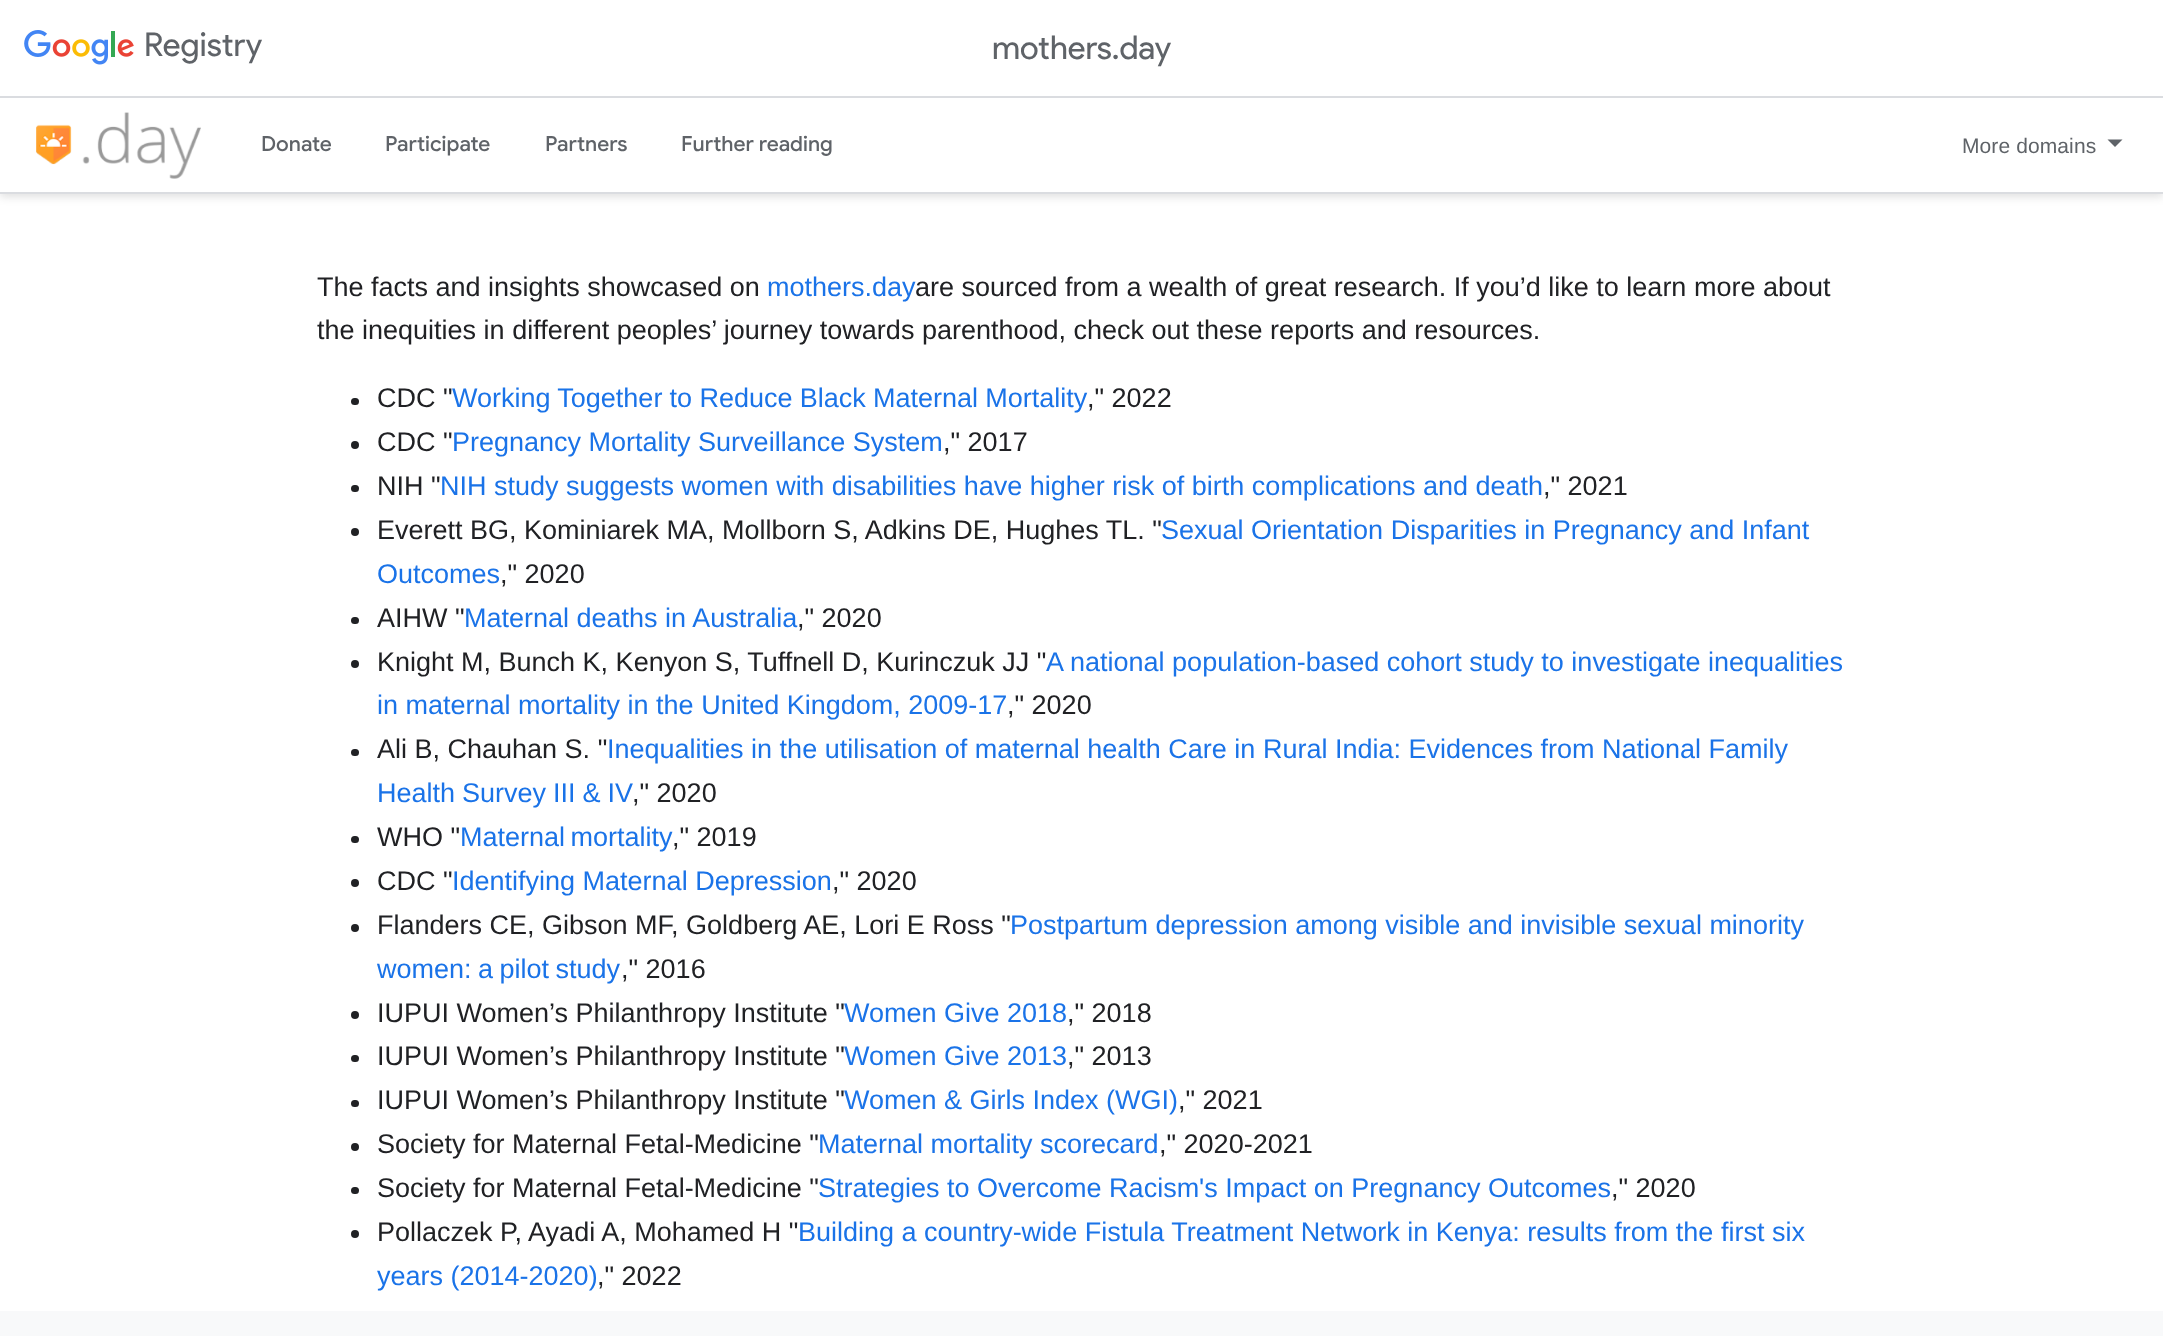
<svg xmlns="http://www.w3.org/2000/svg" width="2163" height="1336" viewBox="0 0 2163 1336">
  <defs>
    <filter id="blur1" x="-50%" y="-200%" width="200%" height="500%"><feGaussianBlur stdDeviation="4.5"/></filter>
  </defs>
  <rect width="100%" height="100%" fill="#ffffff"/>
  <rect x="0" y="3" width="2163" height="194" fill="#000000" fill-opacity="0.12" filter="url(#blur1)"/>
  <rect x="0" y="0" width="2163" height="192" fill="#ffffff"/>
  <rect x="0" y="192" width="2163" height="2" fill="#dadce0"/>
  <rect x="0" y="96" width="2163" height="2" fill="#dadce0"/>
  <image x="24" y="30" width="110" height="35" href="img1.png"/>
  <text x="144" y="56" font-family="Product Sans" font-size="33" fill="#5f6368">Registry</text>
  <text x="992" y="59" font-family="Product Sans" font-size="33" fill="#5f6368">mothers.day</text>
  <image x="36" y="112" width="165" height="67" href="img2.png"/>
  <text x="261" y="151" font-family="Google Sans" font-size="21" font-weight="500" fill="#5f6368">Donate</text>
  <text x="385" y="151" font-family="Google Sans" font-size="21" font-weight="500" fill="#5f6368">Participate</text>
  <text x="545" y="151" font-family="Google Sans" font-size="21" font-weight="500" fill="#5f6368">Partners</text>
  <text x="681" y="151" font-family="Google Sans" font-size="21" font-weight="500" fill="#5f6368">Further reading</text>
  <text x="1962" y="153" font-family="Liberation Sans" font-size="21" letter-spacing="0.1" fill="#5f6368">More domains</text>
  <path d="M2107.5 139.5L2115 147L2122.5 139.5Z" fill="#5f6368"/>
  <text x="317" y="296" font-family="Liberation Sans" font-size="27" fill="#202124">The facts and insights showcased on</text>
  <text x="767" y="296" font-family="Liberation Sans" font-size="27" fill="#1a73e8">mothers.day</text>
  <text x="915" y="296" font-family="Liberation Sans" font-size="27" fill="#202124">are sourced from a wealth of great research. If you’d like to learn more about</text>
  <text x="317" y="339" font-family="Liberation Sans" font-size="27" fill="#202124">the inequities in different peoples’ journey towards parenthood, check out these reports and resources.</text>
  <rect x="351" y="398" width="8" height="7" rx="3.5" fill="#202124"/>
  <text x="377" y="407" font-family="Liberation Sans" font-size="27" fill="#202124">CDC "</text>
  <text x="452" y="407" word-spacing="-0.25" font-family="Liberation Sans" font-size="27" fill="#1a73e8">Working Together to Reduce Black Maternal Mortality</text>
  <text x="1087" y="407" font-family="Liberation Sans" font-size="27" fill="#202124">," 2022</text>
  <circle cx="355" cy="445" r="4" fill="#202124"/>
  <text x="377" y="451" font-family="Liberation Sans" font-size="27" fill="#202124">CDC "</text>
  <text x="452" y="451" font-family="Liberation Sans" font-size="27" fill="#1a73e8">Pregnancy Mortality Surveillance System</text>
  <text x="943" y="451" font-family="Liberation Sans" font-size="27" fill="#202124">," 2017</text>
  <rect x="351" y="485" width="8" height="7" rx="3.5" fill="#202124"/>
  <text x="377" y="495" font-family="Liberation Sans" font-size="27" fill="#202124">NIH "</text>
  <text x="440" y="495" font-family="Liberation Sans" font-size="27" fill="#1a73e8">NIH study suggests women with disabilities have higher risk of birth complications and death</text>
  <text x="1543" y="495" font-family="Liberation Sans" font-size="27" fill="#202124">," 2021</text>
  <circle cx="355" cy="532" r="4" fill="#202124"/>
  <text x="377" y="539" font-family="Liberation Sans" font-size="27" fill="#202124">Everett BG, Kominiarek MA, Mollborn S, Adkins DE, Hughes TL. "</text>
  <text x="1161" y="539" font-family="Liberation Sans" font-size="27" fill="#1a73e8">Sexual Orientation Disparities in Pregnancy and Infant</text>
  <text x="377" y="583" font-family="Liberation Sans" font-size="27" fill="#1a73e8">Outcomes</text>
  <text x="500" y="583" font-family="Liberation Sans" font-size="27" fill="#202124">," 2020</text>
  <rect x="351" y="617" width="8" height="7" rx="3.5" fill="#202124"/>
  <text x="377" y="627" font-family="Liberation Sans" font-size="27" fill="#202124">AIHW "</text>
  <text x="464" y="627" font-family="Liberation Sans" font-size="27" fill="#1a73e8">Maternal deaths in Australia</text>
  <text x="797" y="627" font-family="Liberation Sans" font-size="27" fill="#202124">," 2020</text>
  <circle cx="355" cy="664" r="4" fill="#202124"/>
  <text x="377" y="671" font-family="Liberation Sans" font-size="27" fill="#202124">Knight M, Bunch K, Kenyon S, Tuffnell D, Kurinczuk JJ "</text>
  <text x="1046" y="671" font-family="Liberation Sans" font-size="27" fill="#1a73e8">A national population-based cohort study to investigate inequalities</text>
  <text x="377" y="714" font-family="Liberation Sans" font-size="27" fill="#1a73e8">in maternal mortality in the United Kingdom, 2009-17</text>
  <text x="1007" y="714" font-family="Liberation Sans" font-size="27" fill="#202124">," 2020</text>
  <rect x="351" y="749" width="8" height="7" rx="3.5" fill="#202124"/>
  <text x="377" y="758" font-family="Liberation Sans" font-size="27" fill="#202124">Ali B, Chauhan S. "</text>
  <text x="607" y="758" font-family="Liberation Sans" font-size="27" fill="#1a73e8">Inequalities in the utilisation of maternal health Care in Rural India: Evidences from National Family</text>
  <text x="377" y="802" word-spacing="-0.5" font-family="Liberation Sans" font-size="27" fill="#1a73e8">Health Survey III &amp; IV</text>
  <text x="632" y="802" font-family="Liberation Sans" font-size="27" fill="#202124">," 2020</text>
  <rect x="351" y="836" width="8" height="7" rx="3.5" fill="#202124"/>
  <text x="377" y="846" font-family="Liberation Sans" font-size="27" fill="#202124">WHO "</text>
  <text x="460" y="846" word-spacing="-2" font-family="Liberation Sans" font-size="27" fill="#1a73e8">Maternal mortality</text>
  <text x="672" y="846" font-family="Liberation Sans" font-size="27" fill="#202124">," 2019</text>
  <circle cx="355" cy="883" r="4" fill="#202124"/>
  <text x="377" y="890" font-family="Liberation Sans" font-size="27" fill="#202124">CDC "</text>
  <text x="452" y="890" font-family="Liberation Sans" font-size="27" fill="#1a73e8">Identifying Maternal Depression</text>
  <text x="832" y="890" font-family="Liberation Sans" font-size="27" fill="#202124">," 2020</text>
  <circle cx="355" cy="928" r="4" fill="#202124"/>
  <text x="377" y="934" font-family="Liberation Sans" font-size="27" fill="#202124">Flanders CE, Gibson MF, Goldberg AE, Lori E Ross "</text>
  <text x="1010" y="934" font-family="Liberation Sans" font-size="27" fill="#1a73e8">Postpartum depression among visible and invisible sexual minority</text>
  <text x="377" y="978" word-spacing="-1" font-family="Liberation Sans" font-size="27" fill="#1a73e8">women: a pilot study</text>
  <text x="621" y="978" font-family="Liberation Sans" font-size="27" fill="#202124">," 2016</text>
  <circle cx="355" cy="1015" r="4" fill="#202124"/>
  <text x="377" y="1022" font-family="Liberation Sans" font-size="27" fill="#202124">IUPUI Women’s Philanthropy Institute "</text>
  <text x="844" y="1022" font-family="Liberation Sans" font-size="27" fill="#1a73e8">Women Give 2018</text>
  <text x="1067" y="1022" font-family="Liberation Sans" font-size="27" fill="#202124">," 2018</text>
  <rect x="351" y="1055" width="8" height="7" rx="3.5" fill="#202124"/>
  <text x="377" y="1065" font-family="Liberation Sans" font-size="27" fill="#202124">IUPUI Women’s Philanthropy Institute "</text>
  <text x="844" y="1065" font-family="Liberation Sans" font-size="27" fill="#1a73e8">Women Give 2013</text>
  <text x="1067" y="1065" font-family="Liberation Sans" font-size="27" fill="#202124">," 2013</text>
  <rect x="351" y="1100" width="8" height="7" rx="3.5" fill="#202124"/>
  <text x="377" y="1109" font-family="Liberation Sans" font-size="27" fill="#202124">IUPUI Women’s Philanthropy Institute "</text>
  <text x="844" y="1109" font-family="Liberation Sans" font-size="27" fill="#1a73e8">Women &amp; Girls Index (WGI)</text>
  <text x="1178" y="1109" font-family="Liberation Sans" font-size="27" fill="#202124">," 2021</text>
  <circle cx="355" cy="1147" r="4" fill="#202124"/>
  <text x="377" y="1153" font-family="Liberation Sans" font-size="27" fill="#202124">Society for Maternal Fetal-Medicine "</text>
  <text x="818" y="1153" font-family="Liberation Sans" font-size="27" fill="#1a73e8">Maternal mortality scorecard</text>
  <text x="1159" y="1153" font-family="Liberation Sans" font-size="27" fill="#202124">," 2020-2021</text>
  <rect x="351" y="1187" width="8" height="7" rx="3.5" fill="#202124"/>
  <text x="377" y="1197" font-family="Liberation Sans" font-size="27" fill="#202124">Society for Maternal Fetal-Medicine "</text>
  <text x="818" y="1197" font-family="Liberation Sans" font-size="27" fill="#1a73e8">Strategies to Overcome Racism's Impact on Pregnancy Outcomes</text>
  <text x="1611" y="1197" font-family="Liberation Sans" font-size="27" fill="#202124">," 2020</text>
  <circle cx="355" cy="1234" r="4" fill="#202124"/>
  <text x="377" y="1241" font-family="Liberation Sans" font-size="27" fill="#202124">Pollaczek P, Ayadi A, Mohamed H "</text>
  <text x="798" y="1241" font-family="Liberation Sans" font-size="27" fill="#1a73e8">Building a country-wide Fistula Treatment Network in Kenya: results from the first six</text>
  <text x="377" y="1285" font-family="Liberation Sans" font-size="27" fill="#1a73e8">years (2014-2020)</text>
  <text x="597" y="1285" font-family="Liberation Sans" font-size="27" fill="#202124">," 2022</text>
  <rect x="0" y="1311" width="2163" height="25" fill="#f8f9fa"/>
</svg>
